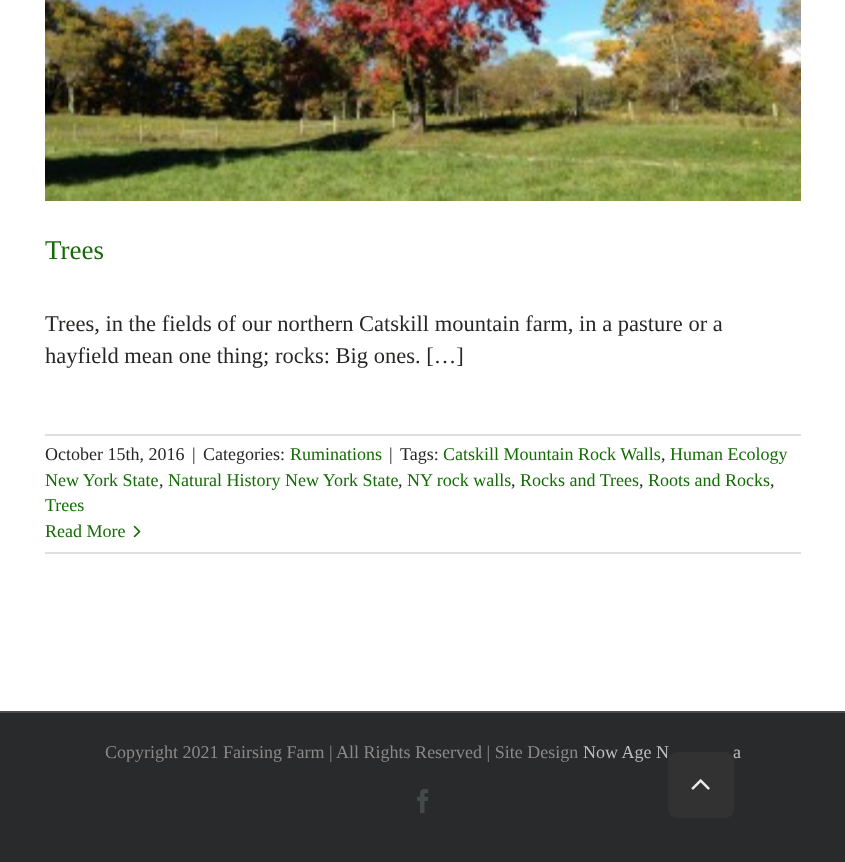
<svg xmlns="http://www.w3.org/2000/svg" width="845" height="862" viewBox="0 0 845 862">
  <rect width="100%" height="100%" fill="#ffffff"/>
  <image x="45" y="0" width="756" height="201" href="img1.png"/>
  <text x="45" y="259" font-family="Liberation Serif" font-size="27" fill="#136b04">Trees</text>
  <text x="45" y="331" font-family="Liberation Serif" font-size="22.5" fill="#282625">Trees, in the fields of our northern Catskill mountain farm, in a pasture or a</text>
  <text x="45" y="363" font-family="Liberation Serif" font-size="22.5" fill="#282625">hayfield mean one thing; rocks: Big ones. […]</text>
  <rect x="45" y="434" width="756" height="2" fill="#e0dede"/>
  <rect x="45" y="552" width="756" height="2" fill="#e0dede"/>
  <text x="45" y="460" font-family="Liberation Serif" font-size="18" fill="#282625">October 15th, 2016</text>
  <text x="192" y="460" font-family="Liberation Serif" font-size="18" fill="#282625">|</text>
  <text x="203" y="460" font-family="Liberation Serif" font-size="18" fill="#282625">Categories:</text>
  <text x="290" y="460" font-family="Liberation Serif" font-size="18" fill="#136b04">Ruminations</text>
  <text x="389" y="460" font-family="Liberation Serif" font-size="18" fill="#282625">|</text>
  <text x="400" y="460" font-family="Liberation Serif" font-size="18" fill="#282625">Tags:</text>
  <text x="443" y="460" font-family="Liberation Serif" font-size="18" fill="#136b04">Catskill Mountain Rock Walls</text>
  <text x="661" y="460" font-family="Liberation Serif" font-size="18" fill="#282625">,</text>
  <text x="670" y="460" font-family="Liberation Serif" font-size="18" fill="#136b04">Human Ecology</text>
  <text x="45" y="486" font-family="Liberation Serif" font-size="18" fill="#136b04">New York State</text>
  <text x="159" y="486" font-family="Liberation Serif" font-size="18" fill="#282625">,</text>
  <text x="168" y="486" font-family="Liberation Serif" font-size="18" fill="#136b04">Natural History New York State</text>
  <text x="398" y="486" font-family="Liberation Serif" font-size="18" fill="#282625">,</text>
  <text x="407" y="486" font-family="Liberation Serif" font-size="18" fill="#136b04">NY rock walls</text>
  <text x="511" y="486" font-family="Liberation Serif" font-size="18" fill="#282625">,</text>
  <text x="520" y="486" font-family="Liberation Serif" font-size="18" fill="#136b04">Rocks and Trees</text>
  <text x="639" y="486" font-family="Liberation Serif" font-size="18" fill="#282625">,</text>
  <text x="648" y="486" font-family="Liberation Serif" font-size="18" fill="#136b04">Roots and Rocks</text>
  <text x="770" y="486" font-family="Liberation Serif" font-size="18" fill="#282625">,</text>
  <text x="45" y="511" font-family="Liberation Serif" font-size="18" fill="#136b04">Trees</text>
  <text x="45" y="537" font-family="Liberation Serif" font-size="18" fill="#136b04">Read More</text>
  <image x="133" y="525" width="8" height="13" href="img2.png"/>
  <rect x="0" y="713" width="845" height="149" fill="#282a2b"/>
  <rect x="0" y="711" width="845" height="2" fill="#4b4c4d"/>
  <text x="105" y="758" font-family="Liberation Serif" font-size="18" fill="#8c8989">Copyright 2021 Fairsing Farm | All Rights Reserved | Site Design</text>
  <text x="583" y="758" font-family="Liberation Serif" font-size="18" fill="#bfbfbf">Now Age N</text>
  <text x="733" y="758" font-family="Liberation Serif" font-size="18" fill="#bfbfbf">a</text>
  <image x="417" y="789" width="12" height="24" href="img3.png"/>
  <rect x="668" y="752" width="66" height="66" rx="9" fill="#333333" fill-opacity="0.9"/>
  <image x="691" y="779" width="19" height="11" href="img4.png"/>
</svg>
